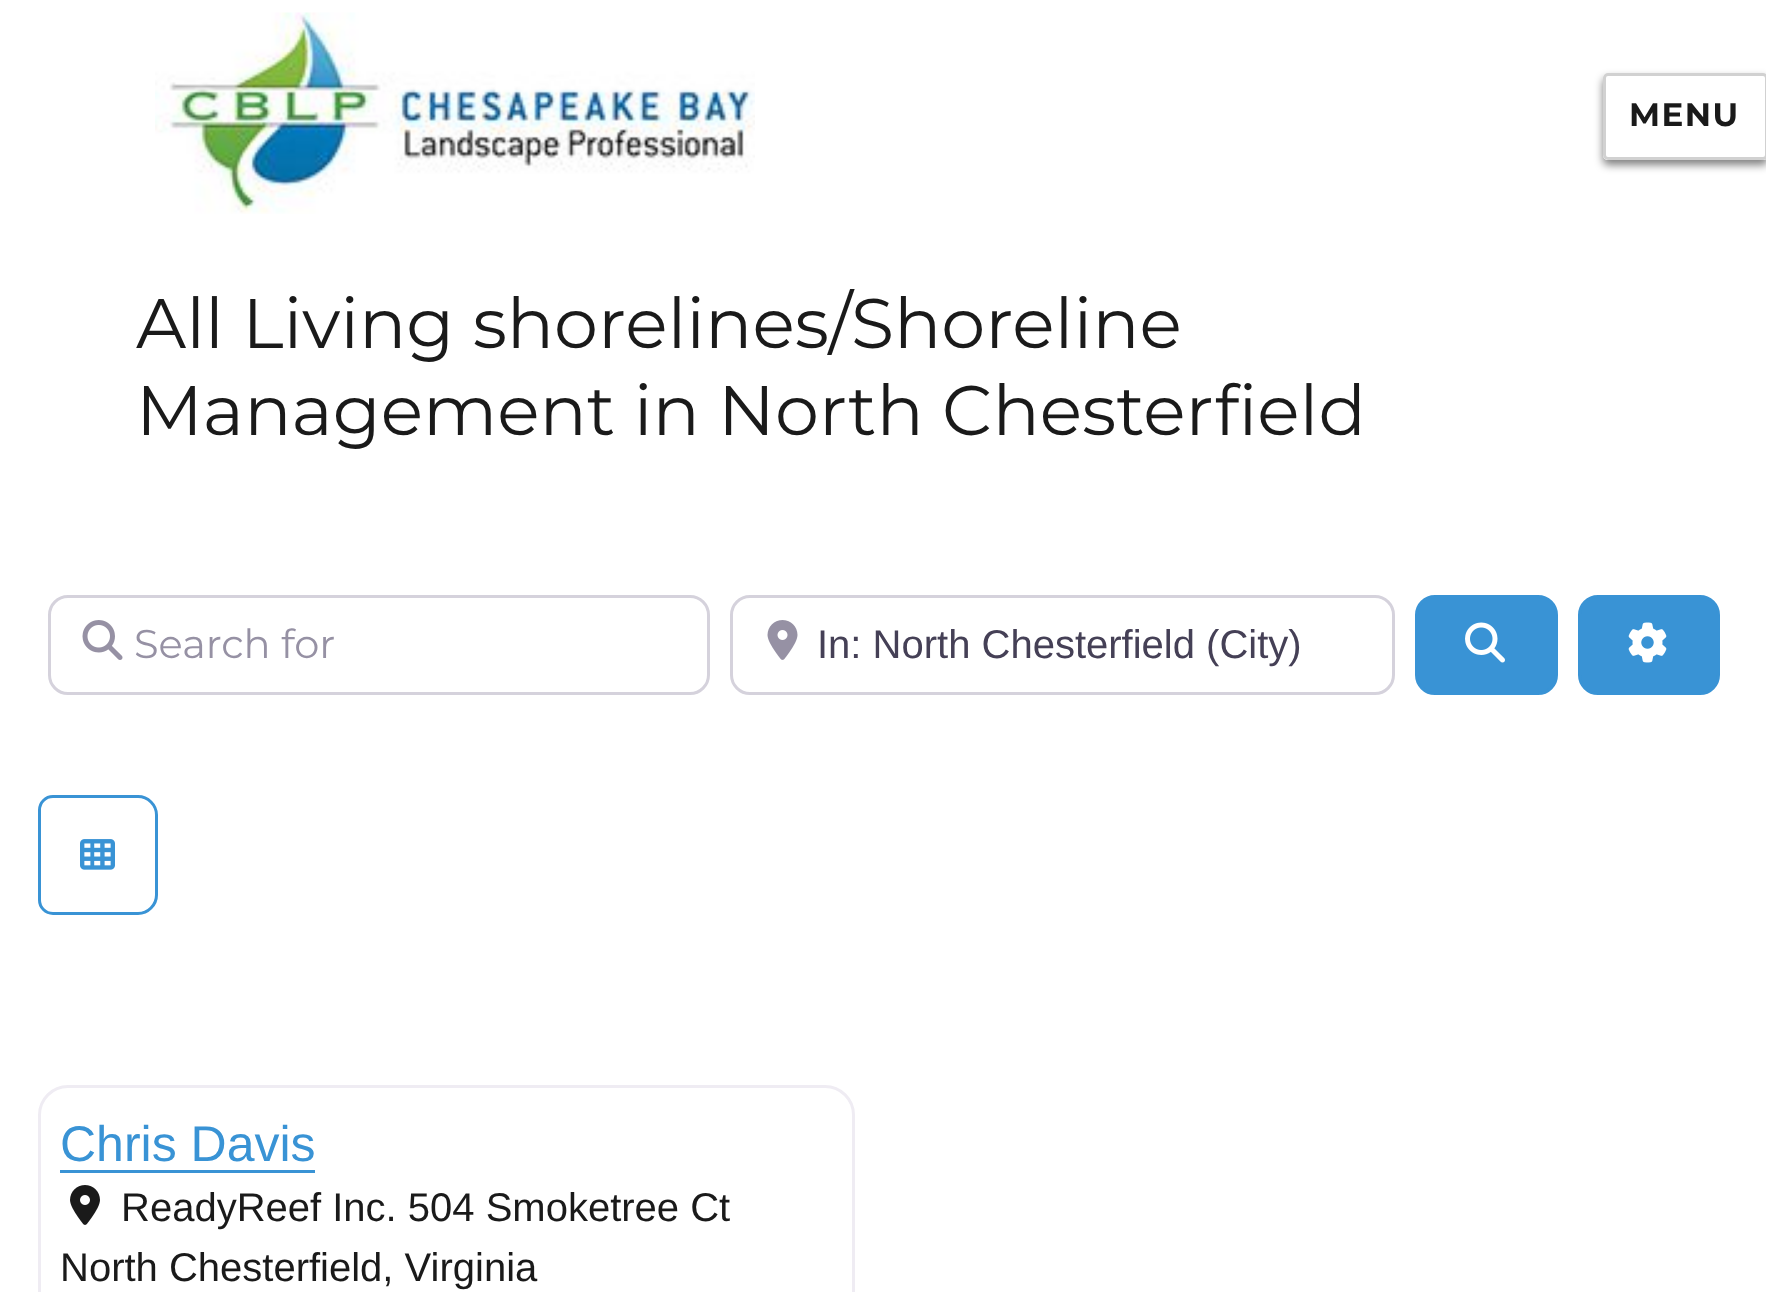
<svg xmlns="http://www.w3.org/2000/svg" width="1766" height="1292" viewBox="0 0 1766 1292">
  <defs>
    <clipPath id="clip1"><path d="M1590 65H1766V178H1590ZM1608 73H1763C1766 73 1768 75 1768 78V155C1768 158 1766 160 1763 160H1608C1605 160 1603 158 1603 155V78C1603 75 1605 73 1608 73Z" clip-rule="evenodd"/></clipPath>
    <filter id="blur1" x="-50%" y="-200%" width="200%" height="500%"><feGaussianBlur stdDeviation="4"/></filter>
  </defs>
  <rect width="100%" height="100%" fill="#ffffff"/>
  <image x="155" y="12" width="600" height="202" href="img1.png"/>
  <g clip-path="url(#clip1)">
    <rect x="1603" y="78" width="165" height="87" rx="5" fill="#000000" fill-opacity="0.5" filter="url(#blur1)"/>
  </g>
  <rect x="1604.5" y="74.5" width="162" height="84" rx="3.5" fill="none" stroke="#d1d1d1" stroke-width="3"/>
  <text x="1629" y="126" font-family="Montserrat" font-size="32.5" font-weight="100" letter-spacing="1.5" fill="#1a1a1a">MENU</text>
  <text x="136" y="348" font-family="'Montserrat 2'" font-size="70" font-weight="100" fill="#1a1a1a">All Living shorelines/Shoreline</text>
  <text x="136" y="435" font-family="'Montserrat 2'" font-size="70" font-weight="100" fill="#1a1a1a">Management in North Chesterfield</text>
  <rect x="49.5" y="596.5" width="659" height="97" rx="18.5" fill="none" stroke="#d5d2dc" stroke-width="3"/>
  <image x="82" y="620" width="41" height="40" href="img2.png"/>
  <text x="134" y="658" font-family="'Montserrat 2'" font-size="40" font-weight="100" fill="#9691a4">Search for</text>
  <rect x="731.5" y="596.5" width="662" height="97" rx="18.5" fill="none" stroke="#d5d2dc" stroke-width="3"/>
  <image x="767" y="620" width="31" height="40" href="img3.png"/>
  <text x="817" y="658" font-family="Liberation Sans" font-size="40" fill="#454056">In: North Chesterfield (City)</text>
  <rect x="1416.5" y="596.5" width="140" height="97" rx="18.5" fill="#3993d5" stroke="#3993d5" stroke-width="3"/>
  <image x="1465" y="622" width="40" height="41" href="img4.png"/>
  <rect x="1579.5" y="596.5" width="139" height="97" rx="18.5" fill="#3993d5" stroke="#3993d5" stroke-width="3"/>
  <image x="1628" y="622" width="39" height="41" href="img5.png"/>
  <path d="M53 796.5H138C148 796.5 156.5 805 156.5 815V895C156.5 905 148 913.5 138 913.5H53C45.5 913.5 39.5 907.5 39.5 900V810C39.5 802.5 45.5 796.5 53 796.5Z" fill="none" stroke="#3993d5" stroke-width="3"/>
  <image x="80" y="839" width="35" height="31" href="img6.png"/>
  <rect x="39.5" y="1086.5" width="814" height="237" rx="28.5" fill="none" stroke="#efecf3" stroke-width="3"/>
  <text x="60" y="1161" font-family="Liberation Sans" font-size="50" fill="#3993d5">Chris Davis</text>
  <rect x="60" y="1170" width="255" height="3" fill="#3993d5"/>
  <image x="70" y="1185" width="30" height="40" href="img7.png"/>
  <text x="121" y="1221" font-family="Liberation Sans" font-size="40" fill="#1a1a1a">ReadyReef Inc. 504 Smoketree Ct</text>
  <text x="60" y="1281" font-family="Liberation Sans" font-size="40" fill="#1a1a1a">North Chesterfield, Virginia</text>
</svg>
